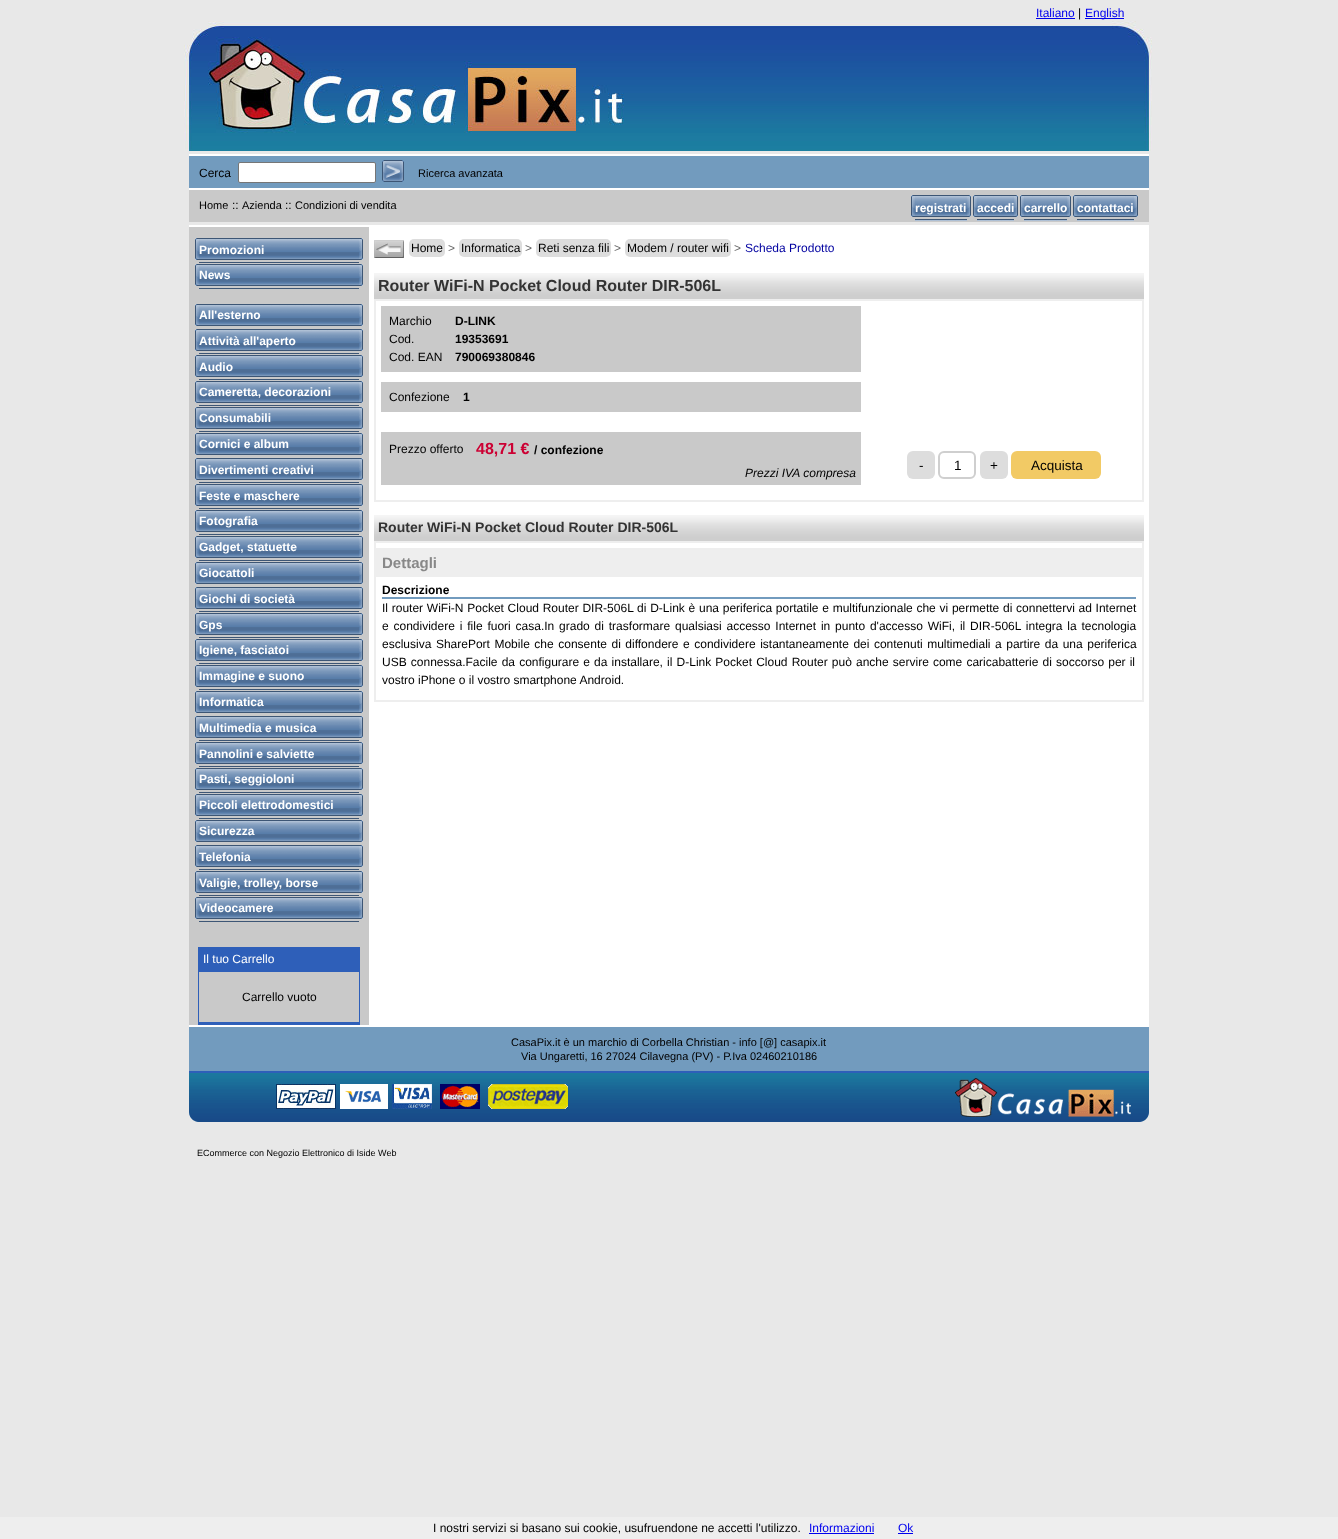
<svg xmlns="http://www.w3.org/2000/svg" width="1338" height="1539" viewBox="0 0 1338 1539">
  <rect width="100%" height="100%" fill="#e8e8e8"/>
  <text x="1036" y="17" font-family="Liberation Sans" font-size="12" fill="#0000ee">Italiano</text>
  <rect x="1036" y="18" width="39" height="1" fill="#0000ee"/>
  <text x="1078" y="17" font-family="Liberation Sans" font-size="12" fill="#000000">|</text>
  <rect x="1085" y="18" width="39" height="1" fill="#0000ee"/>
  <text x="1085" y="17" font-family="Liberation Sans" font-size="12" fill="#0000ee">English</text>
  <image x="184" y="21" width="968" height="130" href="img1.png"/>
  <rect x="189" y="154" width="960" height="2" fill="#ffffff"/>
  <rect x="189" y="156" width="960" height="32" fill="#729bbe"/>
  <text x="199" y="177" font-family="Liberation Sans" font-size="12" fill="#000000">Cerca</text>
  <rect x="238.5" y="162.5" width="137" height="20" rx="1.5" fill="#ffffff" stroke="#767676"/>
  <image x="382" y="160" width="22" height="22" href="img2.png"/>
  <text x="418" y="177" font-family="Liberation Sans" font-size="11" fill="#000000">Ricerca avanzata</text>
  <rect x="189" y="188" width="960" height="2" fill="#ffffff"/>
  <rect x="189" y="190" width="960" height="32" fill="#c9c9c9"/>
  <text x="199" y="209" font-family="Liberation Sans" font-size="11" fill="#000000">Home</text>
  <text x="232" y="209" font-family="Liberation Sans" font-size="12" fill="#000000">::</text>
  <text x="242" y="209" font-family="Liberation Sans" font-size="11" fill="#000000">Azienda</text>
  <text x="285" y="209" font-family="Liberation Sans" font-size="12" fill="#000000">::</text>
  <text x="295" y="209" font-family="Liberation Sans" font-size="11" fill="#000000">Condizioni di vendita</text>
  <image x="911" y="195" width="4" height="22" href="img3.png"/>
  <image x="915" y="195" width="52" height="26" href="img4.png"/>
  <text x="915" y="212" font-family="Liberation Sans" font-size="12" font-weight="bold" fill="#ffffff">registrati</text>
  <image x="967" y="195" width="4" height="22" href="img5.png"/>
  <image x="973" y="195" width="4" height="22" href="img3.png"/>
  <image x="977" y="195" width="37" height="26" href="img6.png"/>
  <text x="977" y="212" font-family="Liberation Sans" font-size="12" font-weight="bold" fill="#ffffff">accedi</text>
  <image x="1014" y="195" width="4" height="22" href="img5.png"/>
  <image x="1020" y="195" width="4" height="22" href="img3.png"/>
  <image x="1024" y="195" width="43" height="26" href="img7.png"/>
  <text x="1024" y="212" font-family="Liberation Sans" font-size="12" font-weight="bold" fill="#ffffff">carrello</text>
  <image x="1067" y="195" width="4" height="22" href="img5.png"/>
  <image x="1073" y="195" width="4" height="22" href="img3.png"/>
  <image x="1077" y="195" width="57" height="26" href="img8.png"/>
  <text x="1077" y="212" font-family="Liberation Sans" font-size="12" font-weight="bold" fill="#ffffff">contattaci</text>
  <image x="1134" y="195" width="4" height="22" href="img5.png"/>
  <rect x="189" y="225" width="960" height="2" fill="#ffffff"/>
  <rect x="369" y="227" width="780" height="798" fill="#ffffff"/>
  <rect x="189" y="227" width="180" height="798" fill="#c9c9c9"/>
  <image x="195" y="238" width="4" height="22" href="img3.png"/>
  <image x="199" y="238" width="160" height="25" href="img9.png"/>
  <text x="199" y="254" font-family="Liberation Sans" font-size="12" font-weight="bold" fill="#ffffff">Promozioni</text>
  <image x="359" y="238" width="4" height="22" href="img5.png"/>
  <image x="195" y="264" width="4" height="22" href="img3.png"/>
  <image x="199" y="264" width="160" height="25" href="img9.png"/>
  <text x="199" y="279" font-family="Liberation Sans" font-size="12" font-weight="bold" fill="#ffffff">News</text>
  <image x="359" y="264" width="4" height="22" href="img5.png"/>
  <image x="195" y="304" width="4" height="22" href="img3.png"/>
  <image x="199" y="304" width="160" height="22" href="img10.png"/>
  <text x="199" y="319" font-family="Liberation Sans" font-size="12" font-weight="bold" fill="#ffffff">All'esterno</text>
  <image x="359" y="304" width="4" height="22" href="img5.png"/>
  <image x="195" y="329" width="4" height="22" href="img3.png"/>
  <image x="199" y="329" width="160" height="25" href="img9.png"/>
  <text x="199" y="345" font-family="Liberation Sans" font-size="12" font-weight="bold" fill="#ffffff">Attività all'aperto</text>
  <image x="359" y="329" width="4" height="22" href="img5.png"/>
  <image x="195" y="355" width="4" height="22" href="img3.png"/>
  <image x="199" y="355" width="160" height="25" href="img9.png"/>
  <text x="199" y="371" font-family="Liberation Sans" font-size="12" font-weight="bold" fill="#ffffff">Audio</text>
  <image x="359" y="355" width="4" height="22" href="img5.png"/>
  <image x="195" y="381" width="4" height="22" href="img3.png"/>
  <image x="199" y="381" width="160" height="25" href="img9.png"/>
  <text x="199" y="396" font-family="Liberation Sans" font-size="12" font-weight="bold" fill="#ffffff">Cameretta, decorazioni</text>
  <image x="359" y="381" width="4" height="22" href="img5.png"/>
  <image x="195" y="407" width="4" height="22" href="img3.png"/>
  <image x="199" y="407" width="160" height="25" href="img9.png"/>
  <text x="199" y="422" font-family="Liberation Sans" font-size="12" font-weight="bold" fill="#ffffff">Consumabili</text>
  <image x="359" y="407" width="4" height="22" href="img5.png"/>
  <image x="195" y="433" width="4" height="22" href="img3.png"/>
  <image x="199" y="433" width="160" height="22" href="img10.png"/>
  <text x="199" y="448" font-family="Liberation Sans" font-size="12" font-weight="bold" fill="#ffffff">Cornici e album</text>
  <image x="359" y="433" width="4" height="22" href="img5.png"/>
  <image x="195" y="458" width="4" height="22" href="img3.png"/>
  <image x="199" y="458" width="160" height="25" href="img9.png"/>
  <text x="199" y="474" font-family="Liberation Sans" font-size="12" font-weight="bold" fill="#ffffff">Divertimenti creativi</text>
  <image x="359" y="458" width="4" height="22" href="img5.png"/>
  <image x="195" y="484" width="4" height="22" href="img3.png"/>
  <image x="199" y="484" width="160" height="25" href="img9.png"/>
  <text x="199" y="500" font-family="Liberation Sans" font-size="12" font-weight="bold" fill="#ffffff">Feste e maschere</text>
  <image x="359" y="484" width="4" height="22" href="img5.png"/>
  <image x="195" y="510" width="4" height="22" href="img3.png"/>
  <image x="199" y="510" width="160" height="25" href="img9.png"/>
  <text x="199" y="525" font-family="Liberation Sans" font-size="12" font-weight="bold" fill="#ffffff">Fotografia</text>
  <image x="359" y="510" width="4" height="22" href="img5.png"/>
  <image x="195" y="536" width="4" height="22" href="img3.png"/>
  <image x="199" y="536" width="160" height="25" href="img9.png"/>
  <text x="199" y="551" font-family="Liberation Sans" font-size="12" font-weight="bold" fill="#ffffff">Gadget, statuette</text>
  <image x="359" y="536" width="4" height="22" href="img5.png"/>
  <image x="195" y="562" width="4" height="22" href="img3.png"/>
  <image x="199" y="562" width="160" height="22" href="img10.png"/>
  <text x="199" y="577" font-family="Liberation Sans" font-size="12" font-weight="bold" fill="#ffffff">Giocattoli</text>
  <image x="359" y="562" width="4" height="22" href="img5.png"/>
  <image x="195" y="587" width="4" height="22" href="img3.png"/>
  <image x="199" y="587" width="160" height="25" href="img9.png"/>
  <text x="199" y="603" font-family="Liberation Sans" font-size="12" font-weight="bold" fill="#ffffff">Giochi di società</text>
  <image x="359" y="587" width="4" height="22" href="img5.png"/>
  <image x="195" y="613" width="4" height="22" href="img3.png"/>
  <image x="199" y="613" width="160" height="25" href="img9.png"/>
  <text x="199" y="629" font-family="Liberation Sans" font-size="12" font-weight="bold" fill="#ffffff">Gps</text>
  <image x="359" y="613" width="4" height="22" href="img5.png"/>
  <image x="195" y="639" width="4" height="22" href="img3.png"/>
  <image x="199" y="639" width="160" height="25" href="img9.png"/>
  <text x="199" y="654" font-family="Liberation Sans" font-size="12" font-weight="bold" fill="#ffffff">Igiene, fasciatoi</text>
  <image x="359" y="639" width="4" height="22" href="img5.png"/>
  <image x="195" y="665" width="4" height="22" href="img3.png"/>
  <image x="199" y="665" width="160" height="25" href="img9.png"/>
  <text x="199" y="680" font-family="Liberation Sans" font-size="12" font-weight="bold" fill="#ffffff">Immagine e suono</text>
  <image x="359" y="665" width="4" height="22" href="img5.png"/>
  <image x="195" y="691" width="4" height="22" href="img3.png"/>
  <image x="199" y="691" width="160" height="22" href="img10.png"/>
  <text x="199" y="706" font-family="Liberation Sans" font-size="12" font-weight="bold" fill="#ffffff">Informatica</text>
  <image x="359" y="691" width="4" height="22" href="img5.png"/>
  <image x="195" y="716" width="4" height="22" href="img3.png"/>
  <image x="199" y="716" width="160" height="25" href="img9.png"/>
  <text x="199" y="732" font-family="Liberation Sans" font-size="12" font-weight="bold" fill="#ffffff">Multimedia e musica</text>
  <image x="359" y="716" width="4" height="22" href="img5.png"/>
  <image x="195" y="742" width="4" height="22" href="img3.png"/>
  <image x="199" y="742" width="160" height="25" href="img9.png"/>
  <text x="199" y="758" font-family="Liberation Sans" font-size="12" font-weight="bold" fill="#ffffff">Pannolini e salviette</text>
  <image x="359" y="742" width="4" height="22" href="img5.png"/>
  <image x="195" y="768" width="4" height="22" href="img3.png"/>
  <image x="199" y="768" width="160" height="25" href="img9.png"/>
  <text x="199" y="783" font-family="Liberation Sans" font-size="12" font-weight="bold" fill="#ffffff">Pasti, seggioloni</text>
  <image x="359" y="768" width="4" height="22" href="img5.png"/>
  <image x="195" y="794" width="4" height="22" href="img3.png"/>
  <image x="199" y="794" width="160" height="25" href="img9.png"/>
  <text x="199" y="809" font-family="Liberation Sans" font-size="12" font-weight="bold" fill="#ffffff">Piccoli elettrodomestici</text>
  <image x="359" y="794" width="4" height="22" href="img5.png"/>
  <image x="195" y="820" width="4" height="22" href="img3.png"/>
  <image x="199" y="820" width="160" height="22" href="img10.png"/>
  <text x="199" y="835" font-family="Liberation Sans" font-size="12" font-weight="bold" fill="#ffffff">Sicurezza</text>
  <image x="359" y="820" width="4" height="22" href="img5.png"/>
  <image x="195" y="845" width="4" height="22" href="img3.png"/>
  <image x="199" y="845" width="160" height="25" href="img9.png"/>
  <text x="199" y="861" font-family="Liberation Sans" font-size="12" font-weight="bold" fill="#ffffff">Telefonia</text>
  <image x="359" y="845" width="4" height="22" href="img5.png"/>
  <image x="195" y="871" width="4" height="22" href="img3.png"/>
  <image x="199" y="871" width="160" height="25" href="img9.png"/>
  <text x="199" y="887" font-family="Liberation Sans" font-size="12" font-weight="bold" fill="#ffffff">Valigie, trolley, borse</text>
  <image x="359" y="871" width="4" height="22" href="img5.png"/>
  <image x="195" y="897" width="4" height="22" href="img3.png"/>
  <image x="199" y="897" width="160" height="25" href="img9.png"/>
  <text x="199" y="912" font-family="Liberation Sans" font-size="12" font-weight="bold" fill="#ffffff">Videocamere</text>
  <image x="359" y="897" width="4" height="22" href="img5.png"/>
  <rect x="198" y="947" width="162" height="24" fill="#2e5fb9"/>
  <text x="203" y="963" font-family="Liberation Sans" font-size="12" fill="#ffffff">Il tuo Carrello</text>
  <rect x="198.5" y="971.5" width="161" height="51" fill="none" stroke="#2e5fb9"/>
  <text x="242" y="1001" font-family="Liberation Sans" font-size="12" fill="#000000">Carrello vuoto</text>
  <rect x="198" y="1023" width="162" height="2" fill="#2e5fb9"/>
  <image x="374" y="240" width="30" height="18" href="img11.png"/>
  <rect x="409" y="239" width="36" height="18" rx="5" fill="#dddddd"/>
  <text x="411" y="252" font-family="Liberation Sans" font-size="12" fill="#000000">Home</text>
  <text x="448" y="252" font-family="Liberation Sans" font-size="12" fill="#666666">&gt;</text>
  <rect x="459" y="239" width="63" height="18" rx="5" fill="#dddddd"/>
  <text x="461" y="252" font-family="Liberation Sans" font-size="12" fill="#000000">Informatica</text>
  <text x="525" y="252" font-family="Liberation Sans" font-size="12" fill="#666666">&gt;</text>
  <rect x="536" y="239" width="75" height="18" rx="5" fill="#dddddd"/>
  <text x="538" y="252" font-family="Liberation Sans" font-size="12" fill="#000000">Reti senza fili</text>
  <text x="614" y="252" font-family="Liberation Sans" font-size="12" fill="#666666">&gt;</text>
  <rect x="625" y="239" width="106" height="18" rx="5" fill="#dddddd"/>
  <text x="627" y="252" font-family="Liberation Sans" font-size="12" fill="#000000">Modem / router wifi</text>
  <text x="734" y="252" font-family="Liberation Sans" font-size="12" fill="#666666">&gt;</text>
  <text x="745" y="252" font-family="Liberation Sans" font-size="12" fill="#0000a0">Scheda Prodotto</text>
  <image x="374" y="273" width="770" height="26" href="img12.png"/>
  <text x="378" y="291" font-family="Liberation Sans" font-size="16" font-weight="bold" fill="#333333">Router WiFi-N Pocket Cloud Router DIR-506L</text>
  <rect x="375" y="300" width="768" height="201" fill="none" stroke="#eeeeee" stroke-width="2"/>
  <rect x="381" y="306" width="480" height="66" fill="#c9c9c9"/>
  <text x="389" y="325" font-family="Liberation Sans" font-size="12" fill="#000000">Marchio</text>
  <text x="455" y="325" font-family="Liberation Sans" font-size="12" font-weight="bold" fill="#000000">D-LINK</text>
  <text x="389" y="343" font-family="Liberation Sans" font-size="12" fill="#000000">Cod.</text>
  <text x="455" y="343" font-family="Liberation Sans" font-size="12" font-weight="bold" fill="#000000">19353691</text>
  <text x="389" y="361" font-family="Liberation Sans" font-size="12" fill="#000000">Cod. EAN</text>
  <text x="455" y="361" font-family="Liberation Sans" font-size="12" font-weight="bold" fill="#000000">790069380846</text>
  <rect x="381" y="382" width="480" height="30" fill="#c9c9c9"/>
  <text x="389" y="401" font-family="Liberation Sans" font-size="12" fill="#000000">Confezione</text>
  <text x="463" y="401" font-family="Liberation Sans" font-size="12" font-weight="bold" fill="#000000">1</text>
  <rect x="381" y="432" width="480" height="53" fill="#c9c9c9"/>
  <text x="389" y="453" font-family="Liberation Sans" font-size="12" fill="#000000">Prezzo offerto</text>
  <text x="476" y="454" font-family="Liberation Sans" font-size="16" font-weight="bold" fill="#cc0033">48,71 €</text>
  <text x="534" y="454" font-family="Liberation Sans" font-size="12" font-weight="bold" fill="#000000">/ confezione</text>
  <text x="745" y="477" font-family="Liberation Sans" font-size="12" font-style="italic" fill="#000000">Prezzi IVA compresa</text>
  <rect x="907" y="451" width="28" height="28" rx="6" fill="#dddddd"/>
  <text x="919" y="470" font-family="Liberation Sans" font-size="13.5" fill="#000000">-</text>
  <rect x="939" y="452" width="36" height="26" rx="5" fill="none" stroke="#cfcfcf" stroke-width="2"/>
  <text x="954" y="470" font-family="Liberation Sans" font-size="13.5" fill="#000000">1</text>
  <rect x="980" y="451" width="28" height="28" rx="6" fill="#dddddd"/>
  <text x="990" y="470" font-family="Liberation Sans" font-size="13.5" fill="#000000">+</text>
  <rect x="1011" y="451" width="90" height="28" rx="6" fill="#f2ca65"/>
  <text x="1031" y="470" font-family="Liberation Sans" font-size="13.5" fill="#000000">Acquista</text>
  <image x="374" y="515" width="770" height="26" href="img12.png"/>
  <text x="378" y="532" font-family="Liberation Sans" font-size="14" font-weight="bold" fill="#333333">Router WiFi-N Pocket Cloud Router DIR-506L</text>
  <rect x="375" y="542" width="768" height="159" fill="none" stroke="#eeeeee" stroke-width="2"/>
  <rect x="376" y="548" width="766" height="29" fill="#eeeeee"/>
  <text x="382" y="568" font-family="Liberation Sans" font-size="15" font-weight="bold" fill="#888888">Dettagli</text>
  <text x="382" y="594" font-family="Liberation Sans" font-size="12" font-weight="bold" fill="#000000">Descrizione</text>
  <rect x="382" y="597" width="754" height="2" fill="#729bbe"/>
  <text x="382" y="612" word-spacing="0.4" font-family="Liberation Sans" font-size="12" fill="#000000">Il router WiFi-N Pocket Cloud Router DIR-506L di D-Link è una periferica portatile e multifunzionale che vi permette di connettervi ad Internet</text>
  <text x="382" y="630" word-spacing="1.5" font-family="Liberation Sans" font-size="12" fill="#000000">e condividere i file fuori casa.In grado di trasformare qualsiasi accesso Internet in punto d'accesso WiFi, il DIR-506L integra la tecnologia</text>
  <text x="382" y="648" word-spacing="1.2" font-family="Liberation Sans" font-size="12" fill="#000000">esclusiva SharePort Mobile che consente di diffondere e condividere istantaneamente dei contenuti multimediali a partire da una periferica</text>
  <text x="382" y="666" word-spacing="0.8" font-family="Liberation Sans" font-size="12" fill="#000000">USB connessa.Facile da configurare e da installare, il D-Link Pocket Cloud Router può anche servire come caricabatterie di soccorso per il</text>
  <text x="382" y="684" font-family="Liberation Sans" font-size="12" fill="#000000">vostro iPhone o il vostro smartphone Android.</text>
  <rect x="189" y="1025" width="960" height="2" fill="#ffffff"/>
  <rect x="189" y="1027" width="960" height="44" fill="#729bbe"/>
  <text x="511" y="1046" font-family="Liberation Sans" font-size="11" fill="#000000">CasaPix.it è un marchio di Corbella Christian - info [@] casapix.it</text>
  <text x="521" y="1060" font-family="Liberation Sans" font-size="11" fill="#000000">Via Ungaretti, 16 27024 Cilavegna (PV) - P.Iva 02460210186</text>
  <rect x="189" y="1071" width="960" height="2" fill="#2e5fb9"/>
  <image x="189" y="1073" width="960" height="49" href="img13.png"/>
  <text x="197" y="1156" font-family="Liberation Sans" font-size="9" fill="#000000">ECommerce con Negozio Elettronico di Iside Web</text>
  <rect x="0" y="1517" width="1338" height="22" fill="#eeeeee"/>
  <text x="433" y="1532" font-family="Liberation Sans" font-size="12" fill="#000000">I nostri servizi si basano sui cookie, usufruendone ne accetti l'utilizzo.</text>
  <text x="809" y="1532" font-family="Liberation Sans" font-size="12" fill="#0000ee">Informazioni</text>
  <rect x="809" y="1533" width="65" height="1" fill="#0000ee"/>
  <text x="898" y="1532" font-family="Liberation Sans" font-size="12" fill="#0000ee">Ok</text>
  <rect x="898" y="1533" width="15" height="1" fill="#0000ee"/>
</svg>
